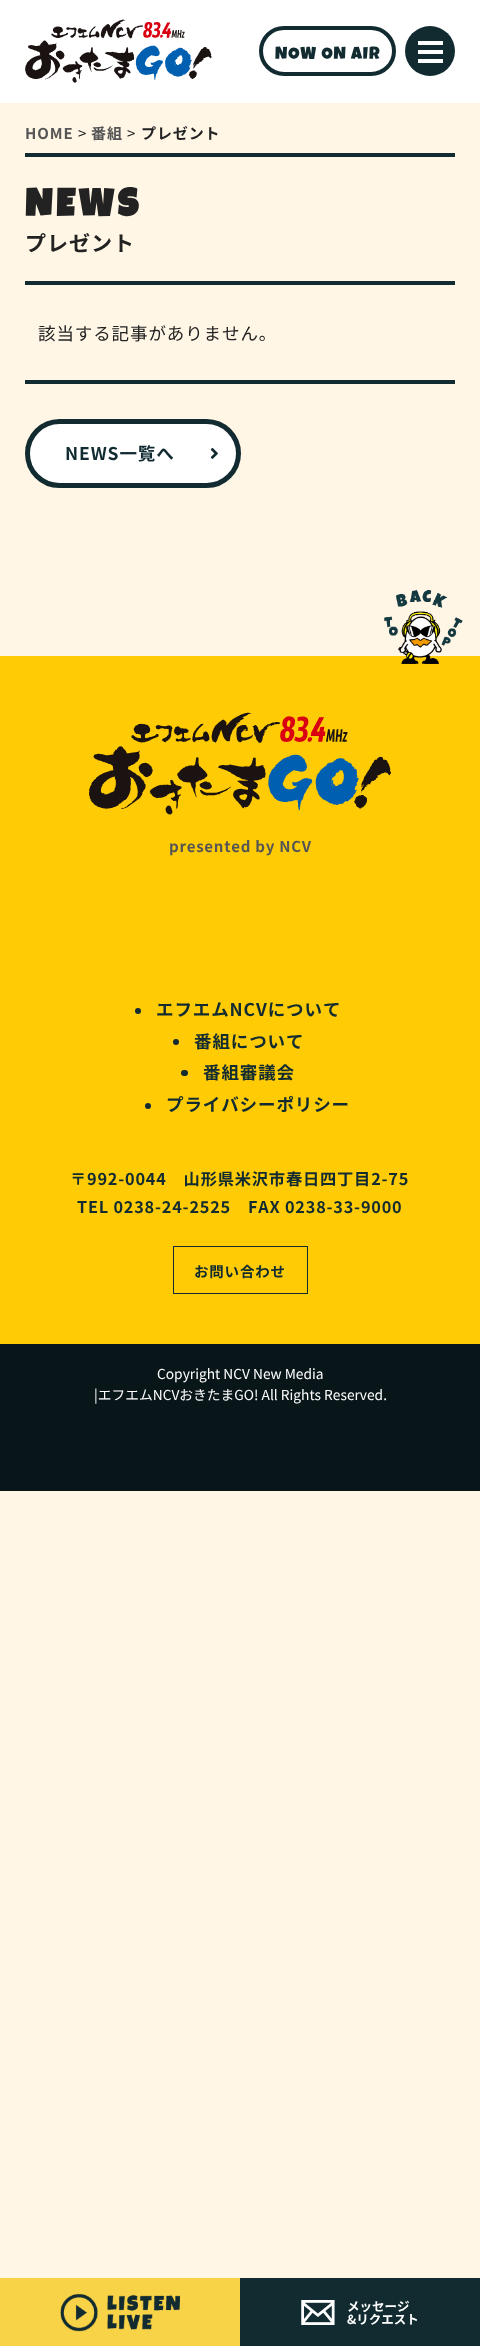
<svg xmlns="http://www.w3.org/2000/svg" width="480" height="2346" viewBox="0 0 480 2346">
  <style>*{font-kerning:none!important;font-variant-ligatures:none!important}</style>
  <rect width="100%" height="100%" fill="#fff6e6"/>
  <rect x="0" y="0" width="480" height="103" fill="#ffffff"/>
  <rect x="261" y="28" width="133" height="46" rx="23" fill="none" stroke="#112b31" stroke-width="4"/>
  <text x="275" y="59" font-family="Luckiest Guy" font-size="17.5" letter-spacing="0.9" fill="#112b31">NOW ON AIR</text>
  <rect x="25" y="153" width="430" height="4" fill="#112b31"/>
  <text x="25" y="139" font-family="Noto Sans JP" font-size="15" font-weight="bold" letter-spacing="0.9" fill="#555555">HOME</text>
  <text x="78" y="139" font-family="Noto Sans JP" font-size="15" letter-spacing="0.9" fill="#222222">&gt;</text>
  <text x="91" y="139" font-family="Noto Sans JP" font-size="15" font-weight="bold" letter-spacing="0.9" fill="#555555">番組</text>
  <text x="127" y="139" font-family="Noto Sans JP" font-size="15" letter-spacing="0.9" fill="#222222">&gt;</text>
  <text x="141" y="139" font-family="Noto Sans JP" font-size="15" font-weight="bold" letter-spacing="0.9" fill="#222222">プレゼント</text>
  <text x="25" y="216" font-family="Luckiest Guy" font-size="38.5" font-weight="bold" letter-spacing="4" fill="#222222">NEWS</text>
  <text x="25" y="251" font-family="Noto Sans JP" font-size="21" font-weight="bold" letter-spacing="1" fill="#222222">プレゼント</text>
  <rect x="25" y="281" width="430" height="4" fill="#112b31"/>
  <rect x="25" y="380" width="430" height="4" fill="#112b31"/>
  <text x="38" y="340" font-family="Noto Sans JP" font-size="17.5" letter-spacing="0.9" fill="#222222">該当する記事がありません。</text>
  <rect x="27.5" y="421.5" width="211" height="64" rx="32" fill="#ffffff" stroke="#112b31" stroke-width="5"/>
  <text x="65" y="460" font-family="Noto Sans JP" font-size="17.5" font-weight="bold" letter-spacing="0.9" fill="#112b31">NEWS一覧へ</text>
  <image x="210" y="448" width="8" height="11" href="img1.png"/>
  <rect x="0" y="656" width="480" height="688" fill="#ffcb05"/>
  <image x="383" y="590" width="80" height="74" href="img2.png"/>
  <image x="89" y="712" width="302" height="103" href="img3.png"/>
  <text x="169" y="852" font-family="Noto Sans JP" font-size="15" font-weight="bold" letter-spacing="0.75" fill="#555555">presented by NCV</text>
  <circle cx="138" cy="1011" r="3" fill="#112b31"/>
  <text x="156" y="1016" font-family="Noto Sans JP" font-size="17.5" font-weight="bold" letter-spacing="0.9" fill="#112b31">エフエムNCVについて</text>
  <circle cx="176" cy="1042" r="3" fill="#112b31"/>
  <text x="194" y="1048" font-family="Noto Sans JP" font-size="17.5" font-weight="bold" letter-spacing="0.9" fill="#112b31">番組について</text>
  <rect x="181" y="1070" width="7" height="6" rx="3" fill="#112b31"/>
  <text x="203" y="1079" font-family="Noto Sans JP" font-size="17.5" font-weight="bold" letter-spacing="0.9" fill="#112b31">番組審議会</text>
  <circle cx="148" cy="1106" r="3" fill="#112b31"/>
  <text x="166" y="1111" font-family="Noto Sans JP" font-size="17.5" font-weight="bold" letter-spacing="0.9" fill="#112b31">プライバシーポリシー</text>
  <text x="70" y="1185" font-family="Noto Sans JP" font-size="16.25" font-weight="bold" letter-spacing="0.8" fill="#112b31">〒992-0044　山形県米沢市春日四丁目2-75</text>
  <text x="77" y="1213" font-family="Noto Sans JP" font-size="16.25" font-weight="bold" letter-spacing="0.8" fill="#112b31">TEL 0238-24-2525　FAX 0238-33-9000</text>
  <rect x="173.5" y="1246.5" width="134" height="47" fill="none" stroke="#112b31"/>
  <text x="194" y="1277" font-family="Noto Sans JP" font-size="14.5" font-weight="bold" letter-spacing="0.8" fill="#112b31">お問い合わせ</text>
  <rect x="0" y="1344" width="480" height="147" fill="#091619"/>
  <text x="157" y="1379" font-family="Noto Sans JP" font-size="13.75" fill="#ffffff">Copyright NCV New Media</text>
  <text x="94" y="1400" font-family="Noto Sans JP" font-size="13.75" fill="#ffffff">|エフエムNCVおきたまGO! All Rights Reserved.</text>
  <image x="25" y="19" width="187" height="64" href="img4.png"/>
  <circle cx="430" cy="51" r="25" fill="#112b31"/>
  <rect x="418" y="41" width="25" height="4" fill="#ffffff"/>
  <rect x="418" y="50" width="25" height="4" fill="#ffffff"/>
  <rect x="418" y="59" width="25" height="4" fill="#ffffff"/>
  <rect x="0" y="2278" width="240" height="68" fill="#f8d347"/>
  <image x="60" y="2293" width="120" height="39" href="img5.png"/>
  <rect x="240" y="2278" width="240" height="68" fill="#112b31"/>
  <image x="301" y="2300" width="34" height="25" href="img6.png"/>
  <text x="347" y="2311" font-family="Noto Sans JP" font-size="12.5" font-weight="bold" fill="#ffffff">メッセージ</text>
  <text x="347" y="2324" font-family="Noto Sans JP" font-size="12.5" font-weight="bold" fill="#ffffff">&amp;リクエスト</text>
</svg>
